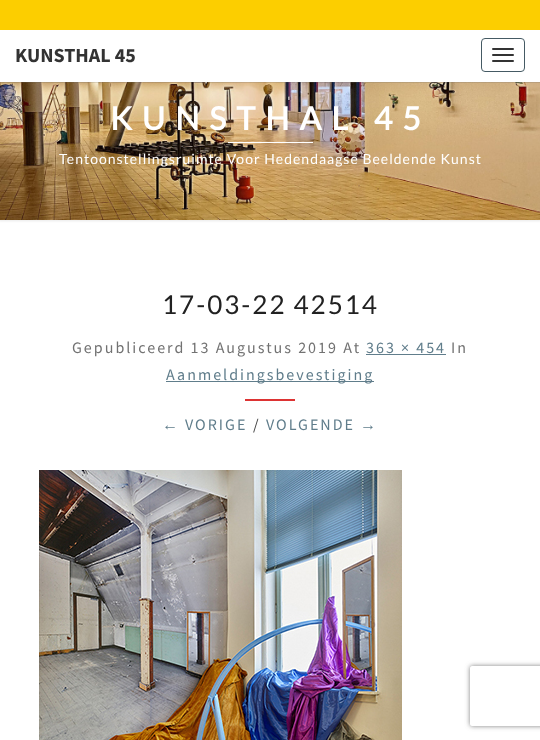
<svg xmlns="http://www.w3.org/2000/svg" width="540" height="740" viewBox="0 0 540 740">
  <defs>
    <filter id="blur1" x="-50%" y="-200%" width="200%" height="500%"><feGaussianBlur stdDeviation="1"/></filter>
    <filter id="blur2" x="-50%" y="-200%" width="200%" height="500%"><feGaussianBlur stdDeviation="0.5"/></filter>
    <clipPath id="clip1"><path d="M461 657H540V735H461ZM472 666H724C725 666 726 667 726 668V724C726 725 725 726 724 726H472C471 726 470 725 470 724V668C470 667 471 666 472 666Z" clip-rule="evenodd"/></clipPath>
    <filter id="blur3" x="-50%" y="-200%" width="200%" height="500%"><feGaussianBlur stdDeviation="2.5"/></filter>
  </defs>
  <rect width="100%" height="100%" fill="#ffffff"/>
  <rect x="-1" y="49" width="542" height="172" fill="#b6b6b6" fill-opacity="0.3" filter="url(#blur1)"/>
  <image x="0" y="82" width="540" height="138" href="img1.png"/>
  <rect x="0" y="1" width="540" height="82" fill="#646464" fill-opacity="0.2" filter="url(#blur2)"/>
  <rect x="0" y="30" width="540" height="52" fill="#ffffff"/>
  <rect x="0" y="0" width="540" height="30" fill="#fcce00"/>
  <text x="15" y="62" font-family="Source Sans Pro" font-size="20" font-weight="bold" fill="#333333">KUNSTHAL 45</text>
  <rect x="481.5" y="38.5" width="43" height="33" rx="3.5" fill="none" stroke="#455a64"/>
  <rect x="492" y="48" width="22" height="2" rx="1" fill="#333333"/>
  <rect x="492" y="54" width="22" height="2" rx="1" fill="#333333"/>
  <rect x="492" y="60" width="22" height="2" rx="1" fill="#333333"/>
  <text x="110" y="130" font-family="Lato" font-size="32" font-weight="bold" letter-spacing="10" fill="#ffffff">KUNSTHAL 45</text>
  <rect x="228" y="142" width="85" height="1" fill="#ffffff"/>
  <text x="59" y="164" font-family="Lato" font-size="14" letter-spacing="1" fill="#ffffff">Tentoonstellingsruimte Voor Hedendaagse Beeldende Kunst</text>
  <text x="162" y="314" font-family="Lato" font-size="26" letter-spacing="2" fill="#212121">17-03-22 42514</text>
  <text x="72" y="353" font-family="Source Sans Pro" font-size="16" letter-spacing="2" fill="#727272">Gepubliceerd 13 Augustus 2019 At</text>
  <text x="366" y="353" font-family="Source Sans Pro" font-size="16" letter-spacing="2" fill="#607d8b">363 × 454</text>
  <rect x="366" y="354" width="80" height="1" fill="#607d8b"/>
  <text x="451" y="353" font-family="Source Sans Pro" font-size="16" letter-spacing="2" fill="#727272">In</text>
  <rect x="166" y="381" width="208" height="1" fill="#607d8b"/>
  <text x="166" y="380" font-family="Source Sans Pro" font-size="16" letter-spacing="2" fill="#607d8b">Aanmeldingsbevestiging</text>
  <rect x="245" y="399" width="50" height="2" fill="#dd3333"/>
  <text x="162" y="430" font-family="Liberation Sans" font-size="16" letter-spacing="2" fill="#607d8b">←</text>
  <text x="185" y="430" font-family="Source Sans Pro" font-size="16" letter-spacing="2" fill="#607d8b">VORIGE</text>
  <text x="253" y="430" font-family="Source Sans Pro" font-size="16" letter-spacing="2" fill="#424242">/</text>
  <text x="266" y="430" font-family="Source Sans Pro" font-size="16" letter-spacing="2" fill="#607d8b">VOLGENDE</text>
  <text x="360" y="430" font-family="Liberation Sans" font-size="16" letter-spacing="2" fill="#607d8b">→</text>
  <image x="39" y="470" width="363" height="270" href="img2.png"/>
  <g clip-path="url(#clip1)">
    <rect x="470" y="666" width="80" height="60" rx="2" fill="#808080" filter="url(#blur3)"/>
  </g>
</svg>
